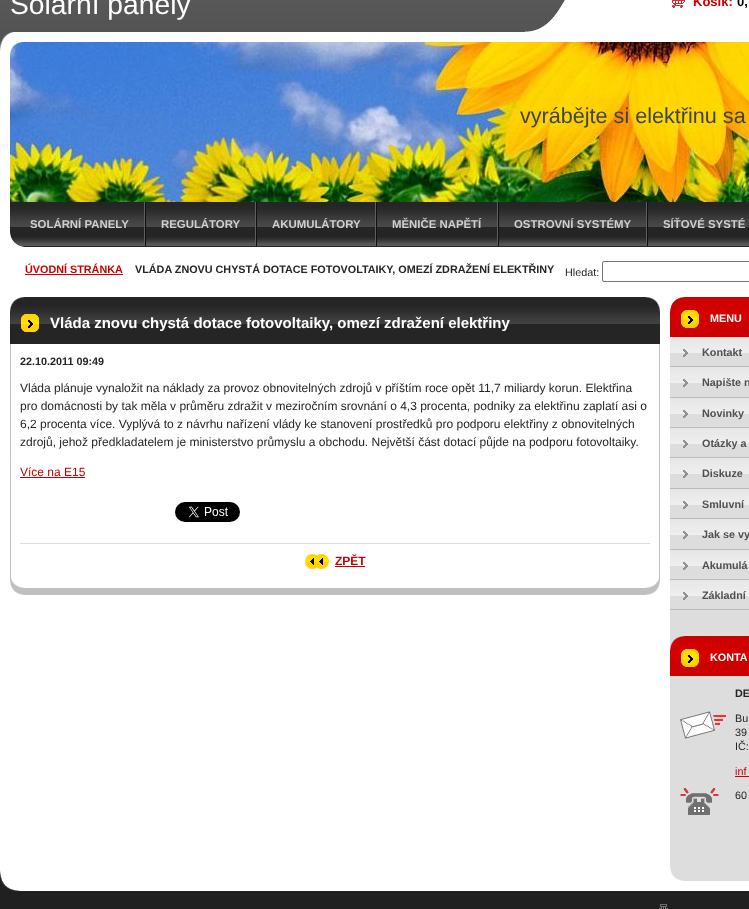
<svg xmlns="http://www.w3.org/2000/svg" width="749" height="909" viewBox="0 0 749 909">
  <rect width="100%" height="100%" fill="#ffffff"/>
  <image x="0" y="0" width="564" height="43" href="img1.png"/>
  <text x="10" y="14" font-family="Liberation Sans" font-size="28.25" fill="#ffffff">Solární panely</text>
  <image x="0" y="32" width="749" height="170" href="img2.png"/>
  <image x="10" y="42" width="739" height="160" href="img4.png"/>
  <image x="0" y="32" width="23" height="23" href="img3.png"/>
  <text x="520" y="123" font-family="Liberation Sans" font-size="21.6" fill="#434343">vyrábějte si elektřinu sa</text>
  <image x="0" y="202" width="749" height="45" href="img5.png"/>
  <rect x="145" y="202" width="1" height="44" fill="#101010"/>
  <rect x="144" y="202" width="1" height="44" fill="#5f5f5f"/>
  <text x="30" y="228" font-family="Liberation Sans" font-size="11.4" font-weight="bold" fill="#d0d0d0">SOLÁRNÍ PANELY</text>
  <rect x="256" y="202" width="1" height="44" fill="#101010"/>
  <rect x="255" y="202" width="1" height="44" fill="#5f5f5f"/>
  <text x="161" y="228" font-family="Liberation Sans" font-size="11.4" font-weight="bold" fill="#d0d0d0">REGULÁTORY</text>
  <rect x="376" y="202" width="1" height="44" fill="#101010"/>
  <rect x="375" y="202" width="1" height="44" fill="#5f5f5f"/>
  <text x="272" y="228" font-family="Liberation Sans" font-size="11.4" font-weight="bold" fill="#d0d0d0">AKUMULÁTORY</text>
  <rect x="498" y="202" width="1" height="44" fill="#101010"/>
  <rect x="497" y="202" width="1" height="44" fill="#5f5f5f"/>
  <text x="392" y="228" font-family="Liberation Sans" font-size="11.4" font-weight="bold" fill="#d0d0d0">MĚNIČE NAPĚTÍ</text>
  <rect x="647" y="202" width="1" height="44" fill="#101010"/>
  <rect x="646" y="202" width="1" height="44" fill="#5f5f5f"/>
  <text x="514" y="228" font-family="Liberation Sans" font-size="11.4" font-weight="bold" fill="#d0d0d0">OSTROVNÍ SYSTÉMY</text>
  <text x="663" y="228" font-family="Liberation Sans" font-size="11.4" font-weight="bold" fill="#d0d0d0">SÍŤOVÉ SYSTÉ</text>
  <image x="10" y="233" width="13" height="14" href="img6.png"/>
  <image x="525" y="0" width="224" height="32" href="img7.png"/>
  <image x="672" y="0" width="13" height="8" href="img8.png"/>
  <text x="693" y="6" font-family="Liberation Sans" font-size="13" font-weight="bold" fill="#cc0000">Košík:</text>
  <text x="737" y="6" font-family="Liberation Sans" font-size="13" font-weight="bold" fill="#000000">0,</text>
  <text x="25" y="273" font-family="Liberation Sans" font-size="10.8" font-weight="bold" fill="#cc0000">ÚVODNÍ STRÁNKA</text>
  <rect x="25" y="274" width="98" height="1" fill="#cc0000"/>
  <text x="135" y="273" font-family="Liberation Sans" font-size="10.8" font-weight="bold" fill="#252525">VLÁDA ZNOVU CHYSTÁ DOTACE FOTOVOLTAIKY, OMEZÍ ZDRAŽENÍ ELEKTŘINY</text>
  <text x="565" y="276" font-family="Liberation Sans" font-size="10.8" fill="#252525">Hledat:</text>
  <rect x="602.5" y="261.5" width="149" height="20" rx="1.5" fill="none" stroke="#767676"/>
  <image x="0" y="871" width="20" height="20" href="img9.png"/>
  <image x="10" y="297" width="650" height="15" href="img10.png"/>
  <rect x="659" y="344" width="1" height="234" fill="#c0c0c0"/>
  <rect x="10" y="344" width="1" height="234" fill="#c0c0c0"/>
  <image x="10" y="578" width="650" height="17" href="img11.png"/>
  <rect x="10" y="332" width="650" height="12" fill="#252525"/>
  <image x="10" y="312" width="650" height="20" href="img12.png"/>
  <text x="50" y="328" font-family="Liberation Sans" font-size="15" font-weight="bold" fill="#ffffff">Vláda znovu chystá dotace fotovoltaiky, omezí zdražení elektřiny</text>
  <text x="20" y="365" font-family="Liberation Sans" font-size="10.8" font-weight="bold" fill="#252525">22.10.2011 09:49</text>
  <text x="20" y="392" font-family="Liberation Sans" font-size="12" fill="#252525">Vláda plánuje vynaložit na náklady za provoz obnovitelných zdrojů v příštím roce opět 11,7 miliardy korun. Elektřina</text>
  <text x="20" y="410" font-family="Liberation Sans" font-size="12" fill="#252525">pro domácnosti by tak měla v průměru zdražit v meziročním srovnání o 4,3 procenta, podniky za elektřinu zaplatí asi o</text>
  <text x="20" y="428" font-family="Liberation Sans" font-size="12" fill="#252525">6,2 procenta více. Vyplývá to z návrhu nařízení vlády ke stanovení prostředků pro podporu elektřiny z obnovitelných</text>
  <text x="20" y="446" font-family="Liberation Sans" font-size="12" fill="#252525">zdrojů, jehož předkladatelem je ministerstvo průmyslu a obchodu. Největší část dotací půjde na podporu fotovoltaiky.</text>
  <text x="20" y="476" font-family="Liberation Sans" font-size="12" fill="#cc0000">Více na E15</text>
  <rect x="20" y="477" width="65" height="1" fill="#cc0000"/>
  <image x="175" y="502" width="65" height="20" href="img13.png"/>
  <rect x="20" y="543" width="630" height="1" fill="#dddddd"/>
  <image x="305" y="554" width="24" height="15" href="img14.png"/>
  <text x="335" y="565" font-family="Liberation Sans" font-size="12" font-weight="bold" fill="#cc0000">ZPĚT</text>
  <rect x="335" y="566" width="30" height="1" fill="#cc0000"/>
  <rect x="670" y="357" width="79" height="524" fill="#dddddd"/>
  <image x="670" y="867" width="14" height="14" href="img15.png"/>
  <image x="670" y="297" width="79" height="31" href="img17.png"/>
  <image x="670" y="297" width="10" height="11" href="img16.png"/>
  <rect x="670" y="328" width="79" height="9" fill="#cc0000"/>
  <text x="710" y="322" font-family="Liberation Sans" font-size="10.8" font-weight="bold" fill="#ffffff">MENU</text>
  <image x="670" y="337" width="79" height="20" href="img18.png"/>
  <rect x="670" y="366" width="79" height="1" fill="#bbbbbb"/>
  <text x="702" y="356" font-family="Liberation Sans" font-size="10.8" font-weight="bold" fill="#505050">Kontakt</text>
  <image x="670" y="367" width="79" height="20" href="img18.png"/>
  <rect x="670" y="397" width="79" height="1" fill="#bbbbbb"/>
  <text x="702" y="386" font-family="Liberation Sans" font-size="10.8" font-weight="bold" fill="#505050">Napište n</text>
  <image x="670" y="398" width="79" height="20" href="img18.png"/>
  <rect x="670" y="427" width="79" height="1" fill="#bbbbbb"/>
  <text x="702" y="417" font-family="Liberation Sans" font-size="10.8" font-weight="bold" fill="#505050">Novinky</text>
  <image x="670" y="428" width="79" height="20" href="img18.png"/>
  <rect x="670" y="457" width="79" height="1" fill="#bbbbbb"/>
  <text x="702" y="447" font-family="Liberation Sans" font-size="10.8" font-weight="bold" fill="#505050">Otázky a</text>
  <image x="670" y="458" width="79" height="20" href="img18.png"/>
  <rect x="670" y="488" width="79" height="1" fill="#bbbbbb"/>
  <text x="702" y="477" font-family="Liberation Sans" font-size="10.8" font-weight="bold" fill="#505050">Diskuze</text>
  <image x="670" y="489" width="79" height="20" href="img18.png"/>
  <rect x="670" y="518" width="79" height="1" fill="#bbbbbb"/>
  <text x="702" y="508" font-family="Liberation Sans" font-size="10.8" font-weight="bold" fill="#505050">Smluvní</text>
  <image x="670" y="519" width="79" height="20" href="img18.png"/>
  <rect x="670" y="549" width="79" height="1" fill="#bbbbbb"/>
  <text x="702" y="538" font-family="Liberation Sans" font-size="10.8" font-weight="bold" fill="#505050">Jak se vy</text>
  <image x="670" y="550" width="79" height="20" href="img18.png"/>
  <rect x="670" y="579" width="79" height="1" fill="#bbbbbb"/>
  <text x="702" y="569" font-family="Liberation Sans" font-size="10.8" font-weight="bold" fill="#505050">Akumulá</text>
  <image x="670" y="580" width="79" height="20" href="img18.png"/>
  <rect x="670" y="609" width="79" height="1" fill="#bbbbbb"/>
  <text x="702" y="599" font-family="Liberation Sans" font-size="10.8" font-weight="bold" fill="#505050">Základní</text>
  <rect x="670" y="667" width="79" height="9" fill="#cc0000"/>
  <image x="670" y="636" width="79" height="31" href="img17.png"/>
  <text x="710" y="661" font-family="Liberation Sans" font-size="10.8" font-weight="bold" fill="#ffffff">KONTA</text>
  <text x="735" y="697" font-family="Liberation Sans" font-size="10.8" font-weight="bold" fill="#252525">DE</text>
  <image x="680" y="711" width="46" height="28" href="img19.png"/>
  <text x="735" y="722" font-family="Liberation Sans" font-size="10.8" fill="#252525">Bu</text>
  <text x="735" y="736" font-family="Liberation Sans" font-size="10.8" fill="#252525">39</text>
  <text x="735" y="750" font-family="Liberation Sans" font-size="10.8" fill="#252525">IČ:</text>
  <text x="735" y="775" font-family="Liberation Sans" font-size="10.8" fill="#cc0000">inf</text>
  <rect x="735" y="776" width="14" height="1" fill="#cc0000"/>
  <image x="680" y="788" width="39" height="27" href="img20.png"/>
  <text x="735" y="799" font-family="Liberation Sans" font-size="10.8" fill="#252525">60</text>
  <rect x="0" y="891" width="749" height="18" fill="#202020"/>
  <image x="659" y="904" width="9" height="5" href="img21.png"/>
</svg>
